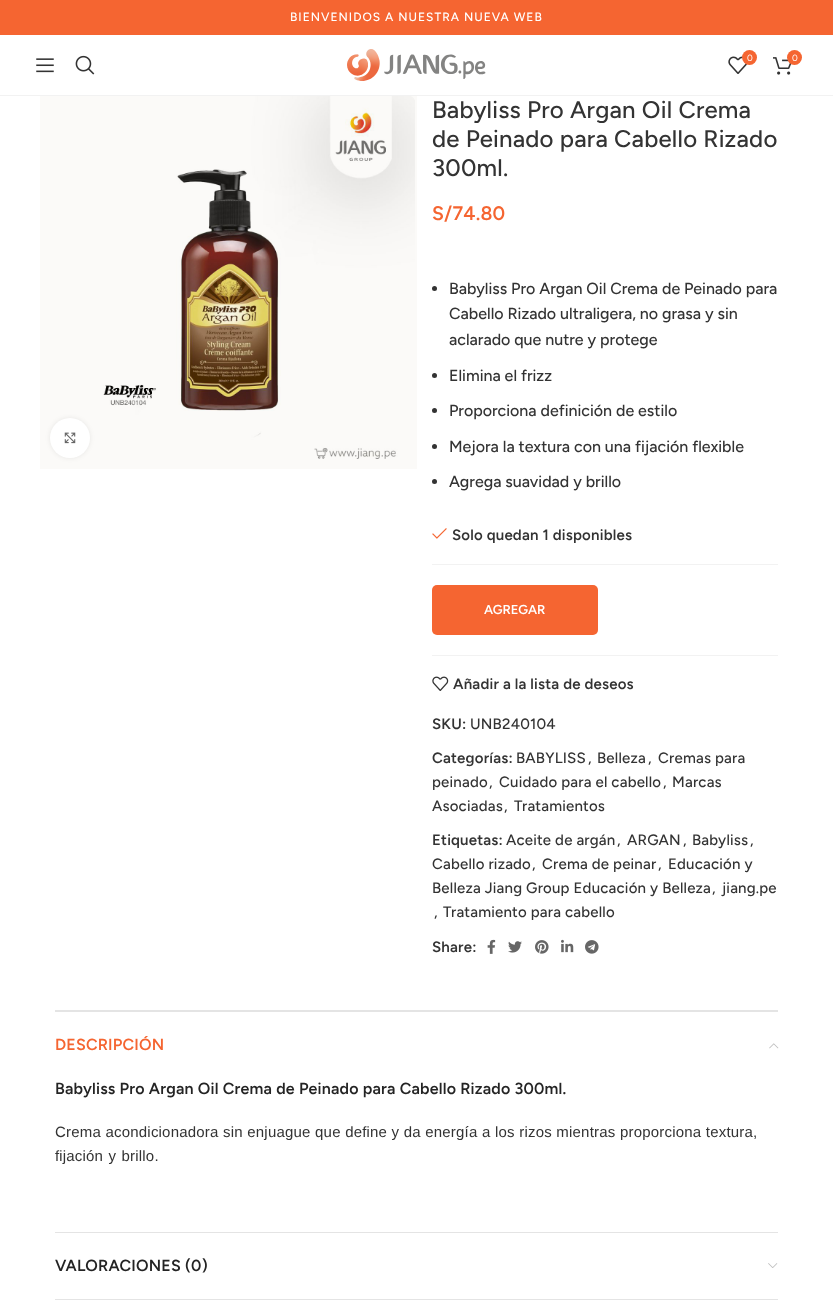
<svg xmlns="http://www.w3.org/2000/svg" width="833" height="1302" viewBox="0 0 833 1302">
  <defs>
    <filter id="blur1" x="-50%" y="-200%" width="200%" height="500%"><feGaussianBlur stdDeviation="2.5"/></filter>
  </defs>
  <rect width="100%" height="100%" fill="#ffffff"/>
  <rect x="0" y="0" width="833" height="35" fill="#f56531"/>
  <text x="290" y="21" font-family="Figtree" font-size="12" font-weight="500" letter-spacing="1" fill="#ffffff">BIENVENIDOS A NUESTRA NUEVA WEB</text>
  <rect x="0" y="95" width="833" height="1" fill="#f2f2f2"/>
  <image x="36" y="58" width="18" height="15" href="img1.png"/>
  <image x="75" y="55" width="20" height="20" href="img2.png"/>
  <image x="347" y="49" width="139" height="32" href="img3.png"/>
  <image x="728" y="56" width="20" height="18" href="img4.png"/>
  <circle cx="749.5" cy="57.5" r="7.5" fill="#f56531"/>
  <text x="747" y="61" font-family="Figtree" font-size="9" fill="#ffffff">0</text>
  <image x="773" y="57" width="19" height="18" href="img5.png"/>
  <circle cx="794.5" cy="57.5" r="7.5" fill="#f56531"/>
  <text x="792" y="61" font-family="Figtree" font-size="9" fill="#ffffff">0</text>
  <image x="56" y="96" width="359" height="363" href="img6.png"/>
  <rect x="40" y="96" width="377" height="373" fill="#825f14" fill-opacity="0.03"/>
  <rect x="50" y="418" width="40" height="40" rx="20" fill="#000000" fill-opacity="0.08" filter="url(#blur1)"/>
  <circle cx="70" cy="438" r="20" fill="#ffffff"/>
  <image x="64" y="432" width="12" height="12" href="img7.png"/>
  <text x="432" y="118" font-family="Figtree" font-size="24" font-weight="500" letter-spacing="0.2" fill="#333333">Babyliss Pro Argan Oil Crema</text>
  <text x="432" y="147" font-family="Figtree" font-size="24" font-weight="500" letter-spacing="0.2" fill="#333333">de Peinado para Cabello Rizado</text>
  <text x="432" y="176" font-family="Figtree" font-size="24" font-weight="500" letter-spacing="0.2" fill="#333333">300ml.</text>
  <text x="432" y="220" font-family="Figtree" font-size="19.5" font-weight="600" letter-spacing="0.2" fill="#f56531">S/74.80</text>
  <circle cx="434.5" cy="288.5" r="2.5" fill="#333333"/>
  <text x="449" y="294" font-family="Figtree" font-size="16" font-weight="500" fill="#333333">Babyliss Pro Argan Oil Crema de Peinado para</text>
  <text x="449" y="319" font-family="Figtree" font-size="16" font-weight="500" fill="#333333">Cabello Rizado ultraligera, no grasa y sin</text>
  <text x="449" y="345" font-family="Figtree" font-size="16" font-weight="500" fill="#333333">aclarado que nutre y protege</text>
  <circle cx="434.5" cy="375.5" r="2.5" fill="#333333"/>
  <text x="449" y="381" font-family="Figtree" font-size="16" font-weight="500" fill="#333333">Elimina el frizz</text>
  <circle cx="434.5" cy="410.5" r="2.5" fill="#333333"/>
  <text x="449" y="416" font-family="Figtree" font-size="16" font-weight="500" fill="#333333">Proporciona definición de estilo</text>
  <circle cx="434.5" cy="446.5" r="2.5" fill="#333333"/>
  <text x="449" y="452" font-family="Figtree" font-size="16" font-weight="500" fill="#333333">Mejora la textura con una fijación flexible</text>
  <circle cx="434.5" cy="481.5" r="2.5" fill="#333333"/>
  <text x="449" y="487" font-family="Figtree" font-size="16" font-weight="500" fill="#333333">Agrega suavidad y brillo</text>
  <image x="432" y="528" width="15" height="11" href="img8.png"/>
  <text x="452" y="540" font-family="Figtree" font-size="15" font-weight="600" letter-spacing="0.2" fill="#333333">Solo quedan 1 disponibles</text>
  <rect x="432" y="564" width="346" height="1" fill="#f2f2f2"/>
  <rect x="432" y="655" width="346" height="1" fill="#f2f2f2"/>
  <rect x="432" y="585" width="166" height="50" rx="5" fill="#f56531"/>
  <text x="484" y="614" font-family="Figtree" font-size="13" font-weight="600" fill="#ffffff">AGREGAR</text>
  <image x="432" y="676" width="17" height="15" href="img9.png"/>
  <text x="453" y="689" font-family="Figtree" font-size="15" font-weight="600" letter-spacing="0.2" fill="#333333">Añadir a la lista de deseos</text>
  <text x="432" y="729" font-family="Figtree" font-size="15" font-weight="600" letter-spacing="0.2" fill="#333333">SKU:</text>
  <text x="470" y="729" font-family="Figtree" font-size="15" font-weight="500" letter-spacing="0.2" fill="#333333">UNB240104</text>
  <text x="432" y="763" font-family="Figtree" font-size="15" font-weight="600" letter-spacing="0.2" fill="#333333">Categorías:</text>
  <text x="516" y="763" font-family="Figtree" font-size="15" font-weight="500" letter-spacing="0.2" fill="#333333">BABYLISS</text>
  <text x="588" y="763" font-family="Figtree" font-size="15" font-weight="500" letter-spacing="0.2" fill="#333333">,</text>
  <text x="597" y="763" font-family="Figtree" font-size="15" font-weight="500" letter-spacing="0.2" fill="#333333">Belleza</text>
  <text x="648" y="763" font-family="Figtree" font-size="15" font-weight="500" letter-spacing="0.2" fill="#333333">,</text>
  <text x="658" y="763" font-family="Figtree" font-size="15" font-weight="500" letter-spacing="0.2" fill="#333333">Cremas para</text>
  <text x="432" y="787" font-family="Figtree" font-size="15" font-weight="500" letter-spacing="0.2" fill="#333333">peinado</text>
  <text x="489" y="787" font-family="Figtree" font-size="15" font-weight="500" letter-spacing="0.2" fill="#333333">,</text>
  <text x="499" y="787" font-family="Figtree" font-size="15" font-weight="500" letter-spacing="0.2" fill="#333333">Cuidado para el cabello</text>
  <text x="663" y="787" font-family="Figtree" font-size="15" font-weight="500" letter-spacing="0.2" fill="#333333">,</text>
  <text x="672" y="787" font-family="Figtree" font-size="15" font-weight="500" letter-spacing="0.2" fill="#333333">Marcas</text>
  <text x="432" y="811" font-family="Figtree" font-size="15" font-weight="500" letter-spacing="0.2" fill="#333333">Asociadas</text>
  <text x="504" y="811" font-family="Figtree" font-size="15" font-weight="500" letter-spacing="0.2" fill="#333333">,</text>
  <text x="514" y="811" font-family="Figtree" font-size="15" font-weight="500" letter-spacing="0.2" fill="#333333">Tratamientos</text>
  <text x="432" y="845" font-family="Figtree" font-size="15" font-weight="600" letter-spacing="0.2" fill="#333333">Etiquetas:</text>
  <text x="506" y="845" font-family="Figtree" font-size="15" font-weight="500" letter-spacing="0.2" fill="#333333">Aceite de argán</text>
  <text x="617" y="845" font-family="Figtree" font-size="15" font-weight="500" letter-spacing="0.2" fill="#333333">,</text>
  <text x="627" y="845" font-family="Figtree" font-size="15" font-weight="500" letter-spacing="0.2" fill="#333333">ARGAN</text>
  <text x="683" y="845" font-family="Figtree" font-size="15" font-weight="500" letter-spacing="0.2" fill="#333333">,</text>
  <text x="692" y="845" font-family="Figtree" font-size="15" font-weight="500" letter-spacing="0.2" fill="#333333">Babyliss</text>
  <text x="750" y="845" font-family="Figtree" font-size="15" font-weight="500" letter-spacing="0.2" fill="#333333">,</text>
  <text x="432" y="869" font-family="Figtree" font-size="15" font-weight="500" letter-spacing="0.2" fill="#333333">Cabello rizado</text>
  <text x="532" y="869" font-family="Figtree" font-size="15" font-weight="500" letter-spacing="0.2" fill="#333333">,</text>
  <text x="542" y="869" font-family="Figtree" font-size="15" font-weight="500" letter-spacing="0.2" fill="#333333">Crema de peinar</text>
  <text x="658" y="869" font-family="Figtree" font-size="15" font-weight="500" letter-spacing="0.2" fill="#333333">,</text>
  <text x="668" y="869" font-family="Figtree" font-size="15" font-weight="500" letter-spacing="0.2" fill="#333333">Educación y</text>
  <text x="432" y="893" font-family="Figtree" font-size="15" font-weight="500" letter-spacing="0.2" fill="#333333">Belleza Jiang Group Educación y Belleza</text>
  <text x="712" y="893" font-family="Figtree" font-size="15" font-weight="500" letter-spacing="0.2" fill="#333333">,</text>
  <text x="722" y="893" font-family="Figtree" font-size="15" font-weight="500" letter-spacing="0.2" fill="#333333">jiang.pe</text>
  <text x="434" y="917" font-family="Figtree" font-size="15" font-weight="500" letter-spacing="0.2" fill="#333333">,</text>
  <text x="443" y="917" font-family="Figtree" font-size="15" font-weight="500" letter-spacing="0.2" fill="#333333">Tratamiento para cabello</text>
  <text x="432" y="952" font-family="Figtree" font-size="15" font-weight="600" letter-spacing="0.2" fill="#333333">Share:</text>
  <image x="487" y="939" width="9" height="15" href="img10.png"/>
  <image x="508" y="941" width="14" height="12" href="img11.png"/>
  <image x="535" y="940" width="14" height="14" href="img12.png"/>
  <image x="561" y="939" width="13" height="14" href="img13.png"/>
  <image x="585" y="940" width="14" height="14" href="img14.png"/>
  <rect x="55" y="1010" width="723" height="2" fill="#e4e4e4"/>
  <rect x="55" y="1232" width="723" height="1" fill="#e4e4e4"/>
  <text x="55" y="1050" font-family="Figtree" font-size="16" font-weight="600" letter-spacing="0.2" fill="#f56531">DESCRIPCIÓN</text>
  <image x="769" y="1043" width="10" height="6" href="img15.png"/>
  <text x="55" y="1094" font-family="Figtree" font-size="16" font-weight="600" letter-spacing="0.2" fill="#242424">Babyliss Pro Argan Oil Crema de Peinado para Cabello Rizado 300ml.</text>
  <text x="55" y="1137" word-spacing="0.1" font-family="Liberation Sans" font-size="15" letter-spacing="0.2" fill="#333333">Crema acondicionadora sin enjuague que deﬁne y da energía a los rizos mientras proporciona textura,</text>
  <text x="55" y="1161" word-spacing="1" font-family="Liberation Sans" font-size="15" letter-spacing="0.2" fill="#333333">ﬁjación y brillo.</text>
  <rect x="55" y="1299" width="723" height="1" fill="#e4e4e4"/>
  <text x="55" y="1271" font-family="Figtree" font-size="16" font-weight="600" letter-spacing="0.2" fill="#242424">VALORACIONES (0)</text>
  <image x="768" y="1263" width="10" height="5" href="img16.png"/>
</svg>
